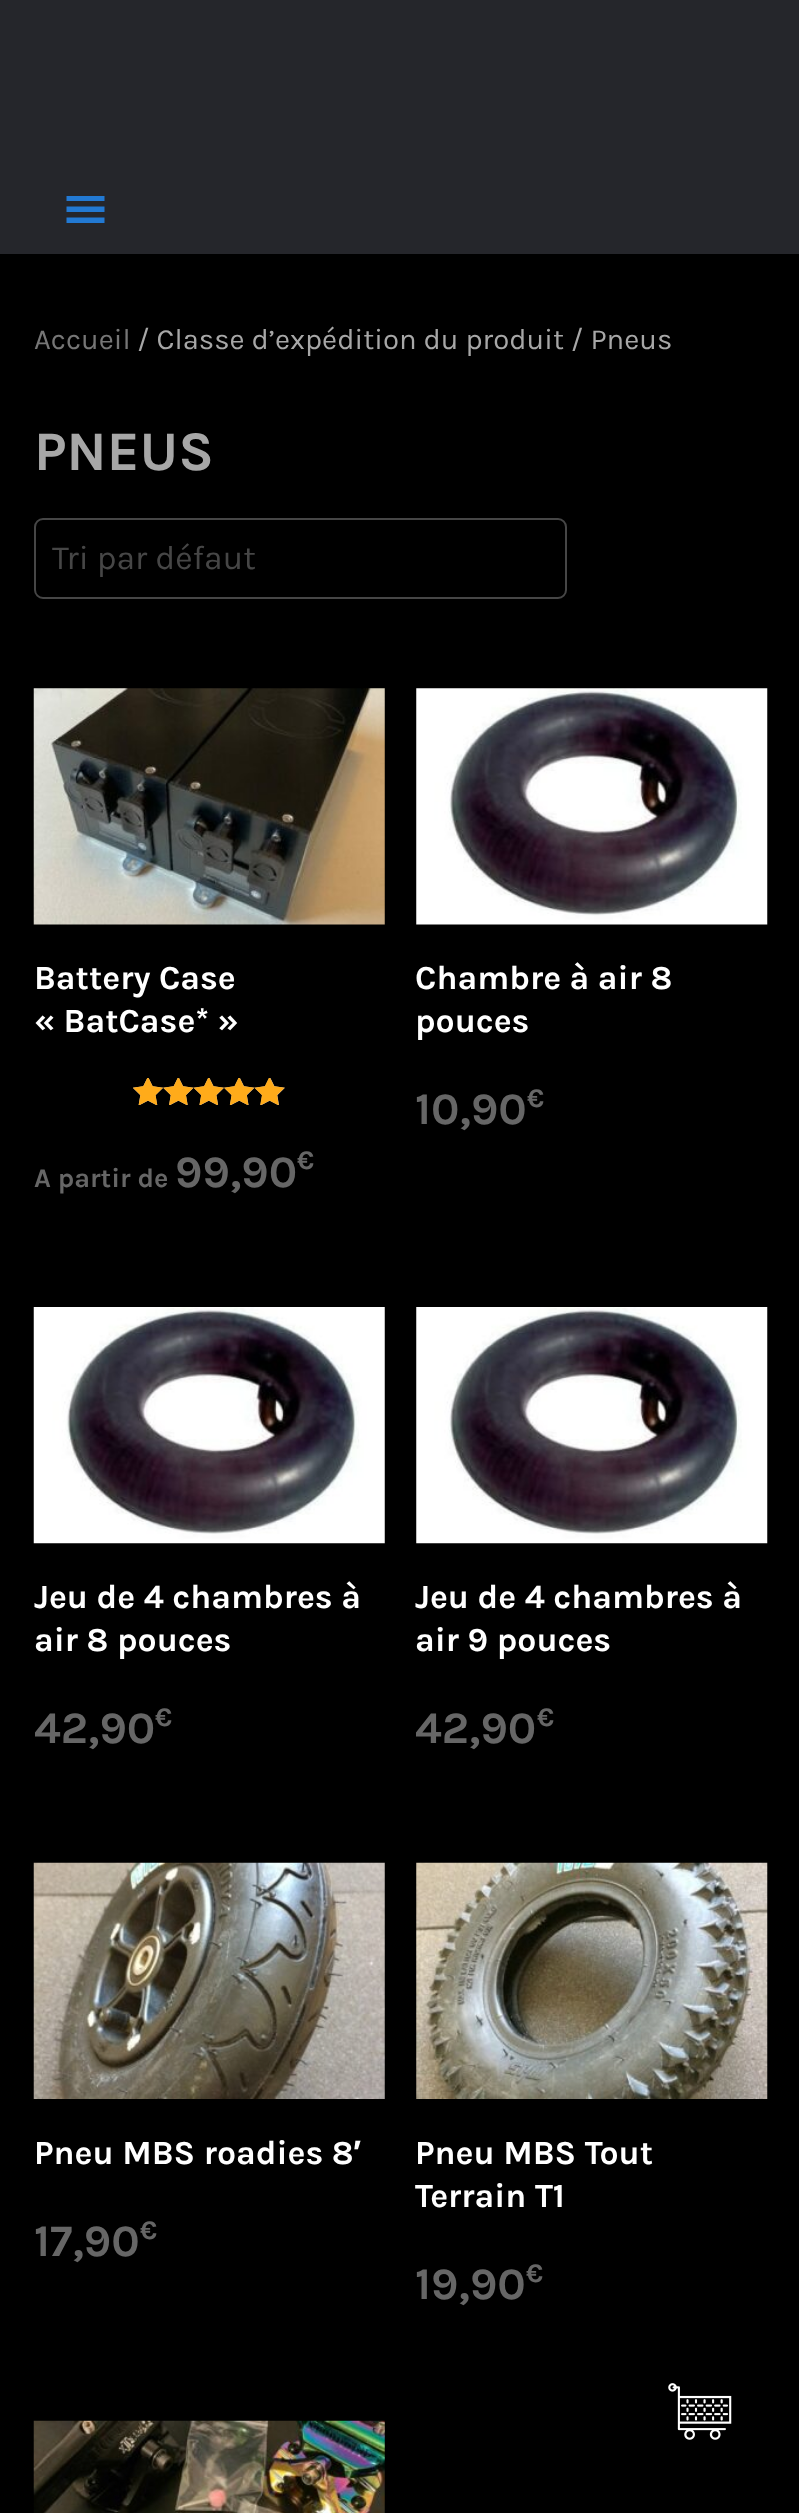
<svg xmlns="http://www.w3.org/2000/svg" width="799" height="2513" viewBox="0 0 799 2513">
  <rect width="100%" height="100%" fill="#25262b"/>
  <path d="M66.5 223H104.5V217.5H66.5ZM66.5 196V201H104.5V196ZM66.5 212H104.5V206.5H66.5Z" fill="#2279d3"/>
  <rect x="0" y="254" width="799" height="2259" fill="#000000"/>
  <text x="34" y="349" font-family="Karla" font-size="29.25" fill="#767676">Accueil</text>
  <text x="137" y="349" font-family="Karla" font-size="29.25" fill="#a7a7a7">/ Classe d’expédition du produit / Pneus</text>
  <text x="34" y="470" font-family="Karla" font-size="56" font-weight="bold" fill="#a7a7a7">PNEUS</text>
  <rect x="35" y="519" width="531" height="79" rx="8" fill="none" stroke="#464646" stroke-width="2"/>
  <text x="52" y="569" font-family="Karla" font-size="33.75" fill="#464646">Tri par défaut</text>
  <image x="33" y="688" width="352" height="237" href="img1.png"/>
  <text x="34" y="989" font-family="Karla" font-size="33.75" font-weight="bold" fill="#ffffff">Battery Case</text>
  <text x="34" y="1032" font-family="Karla" font-size="33.75" font-weight="bold" fill="#ffffff">« BatCase* »</text>
  <image x="133" y="1078" width="152" height="27" href="img2.png"/>
  <image x="133" y="1078" width="152" height="27" href="img3.png"/>
  <text x="34" y="1187" font-family="Karla" font-size="27" font-weight="bold" fill="#666666">A partir de</text>
  <text x="175" y="1187" font-family="Karla" font-size="45" font-weight="bold" fill="#666666">99,90</text>
  <text x="297" y="1169" font-family="Karla" font-size="27" font-weight="bold" fill="#666666">€</text>
  <image x="416" y="688" width="352" height="237" href="img4.png"/>
  <text x="415" y="989" font-family="Karla" font-size="33.75" font-weight="bold" fill="#ffffff">Chambre à air 8</text>
  <text x="415" y="1032" font-family="Karla" font-size="33.75" font-weight="bold" fill="#ffffff">pouces</text>
  <text x="415" y="1124" font-family="Karla" font-size="45" font-weight="bold" fill="#666666">10,90</text>
  <text x="527" y="1107" font-family="Karla" font-size="27" font-weight="bold" fill="#666666">€</text>
  <image x="33" y="1307" width="352" height="237" href="img5.png"/>
  <text x="34" y="1608" font-family="Karla" font-size="33.75" font-weight="bold" fill="#ffffff">Jeu de 4 chambres à</text>
  <text x="34" y="1651" font-family="Karla" font-size="33.75" font-weight="bold" fill="#ffffff">air 8 pouces</text>
  <text x="34" y="1743" font-family="Karla" font-size="45" font-weight="bold" fill="#666666">42,90</text>
  <text x="155" y="1726" font-family="Karla" font-size="27" font-weight="bold" fill="#666666">€</text>
  <image x="416" y="1307" width="352" height="237" href="img6.png"/>
  <text x="415" y="1608" font-family="Karla" font-size="33.75" font-weight="bold" fill="#ffffff">Jeu de 4 chambres à</text>
  <text x="415" y="1651" font-family="Karla" font-size="33.75" font-weight="bold" fill="#ffffff">air 9 pouces</text>
  <text x="415" y="1743" font-family="Karla" font-size="45" font-weight="bold" fill="#666666">42,90</text>
  <text x="537" y="1726" font-family="Karla" font-size="27" font-weight="bold" fill="#666666">€</text>
  <image x="33" y="1862" width="352" height="237" href="img7.png"/>
  <text x="34" y="2164" font-family="Karla" font-size="33.75" font-weight="bold" fill="#ffffff">Pneu MBS roadies 8</text>
  <text x="353" y="2164" font-family="Liberation Sans" font-size="33.75" font-weight="bold" fill="#ffffff">′</text>
  <text x="34" y="2256" font-family="Karla" font-size="45" font-weight="bold" fill="#666666">17,90</text>
  <text x="140" y="2239" font-family="Karla" font-size="27" font-weight="bold" fill="#666666">€</text>
  <image x="416" y="1862" width="352" height="237" href="img8.png"/>
  <text x="415" y="2164" font-family="Karla" font-size="33.75" font-weight="bold" fill="#ffffff">Pneu MBS Tout</text>
  <text x="415" y="2207" font-family="Karla" font-size="33.75" font-weight="bold" fill="#ffffff">Terrain T1</text>
  <text x="415" y="2299" font-family="Karla" font-size="45" font-weight="bold" fill="#666666">19,90</text>
  <text x="526" y="2282" font-family="Karla" font-size="27" font-weight="bold" fill="#666666">€</text>
  <image x="33" y="2420" width="352" height="93" href="img9.png"/>
  <image x="668" y="2383" width="64" height="57" href="img10.png"/>
</svg>
